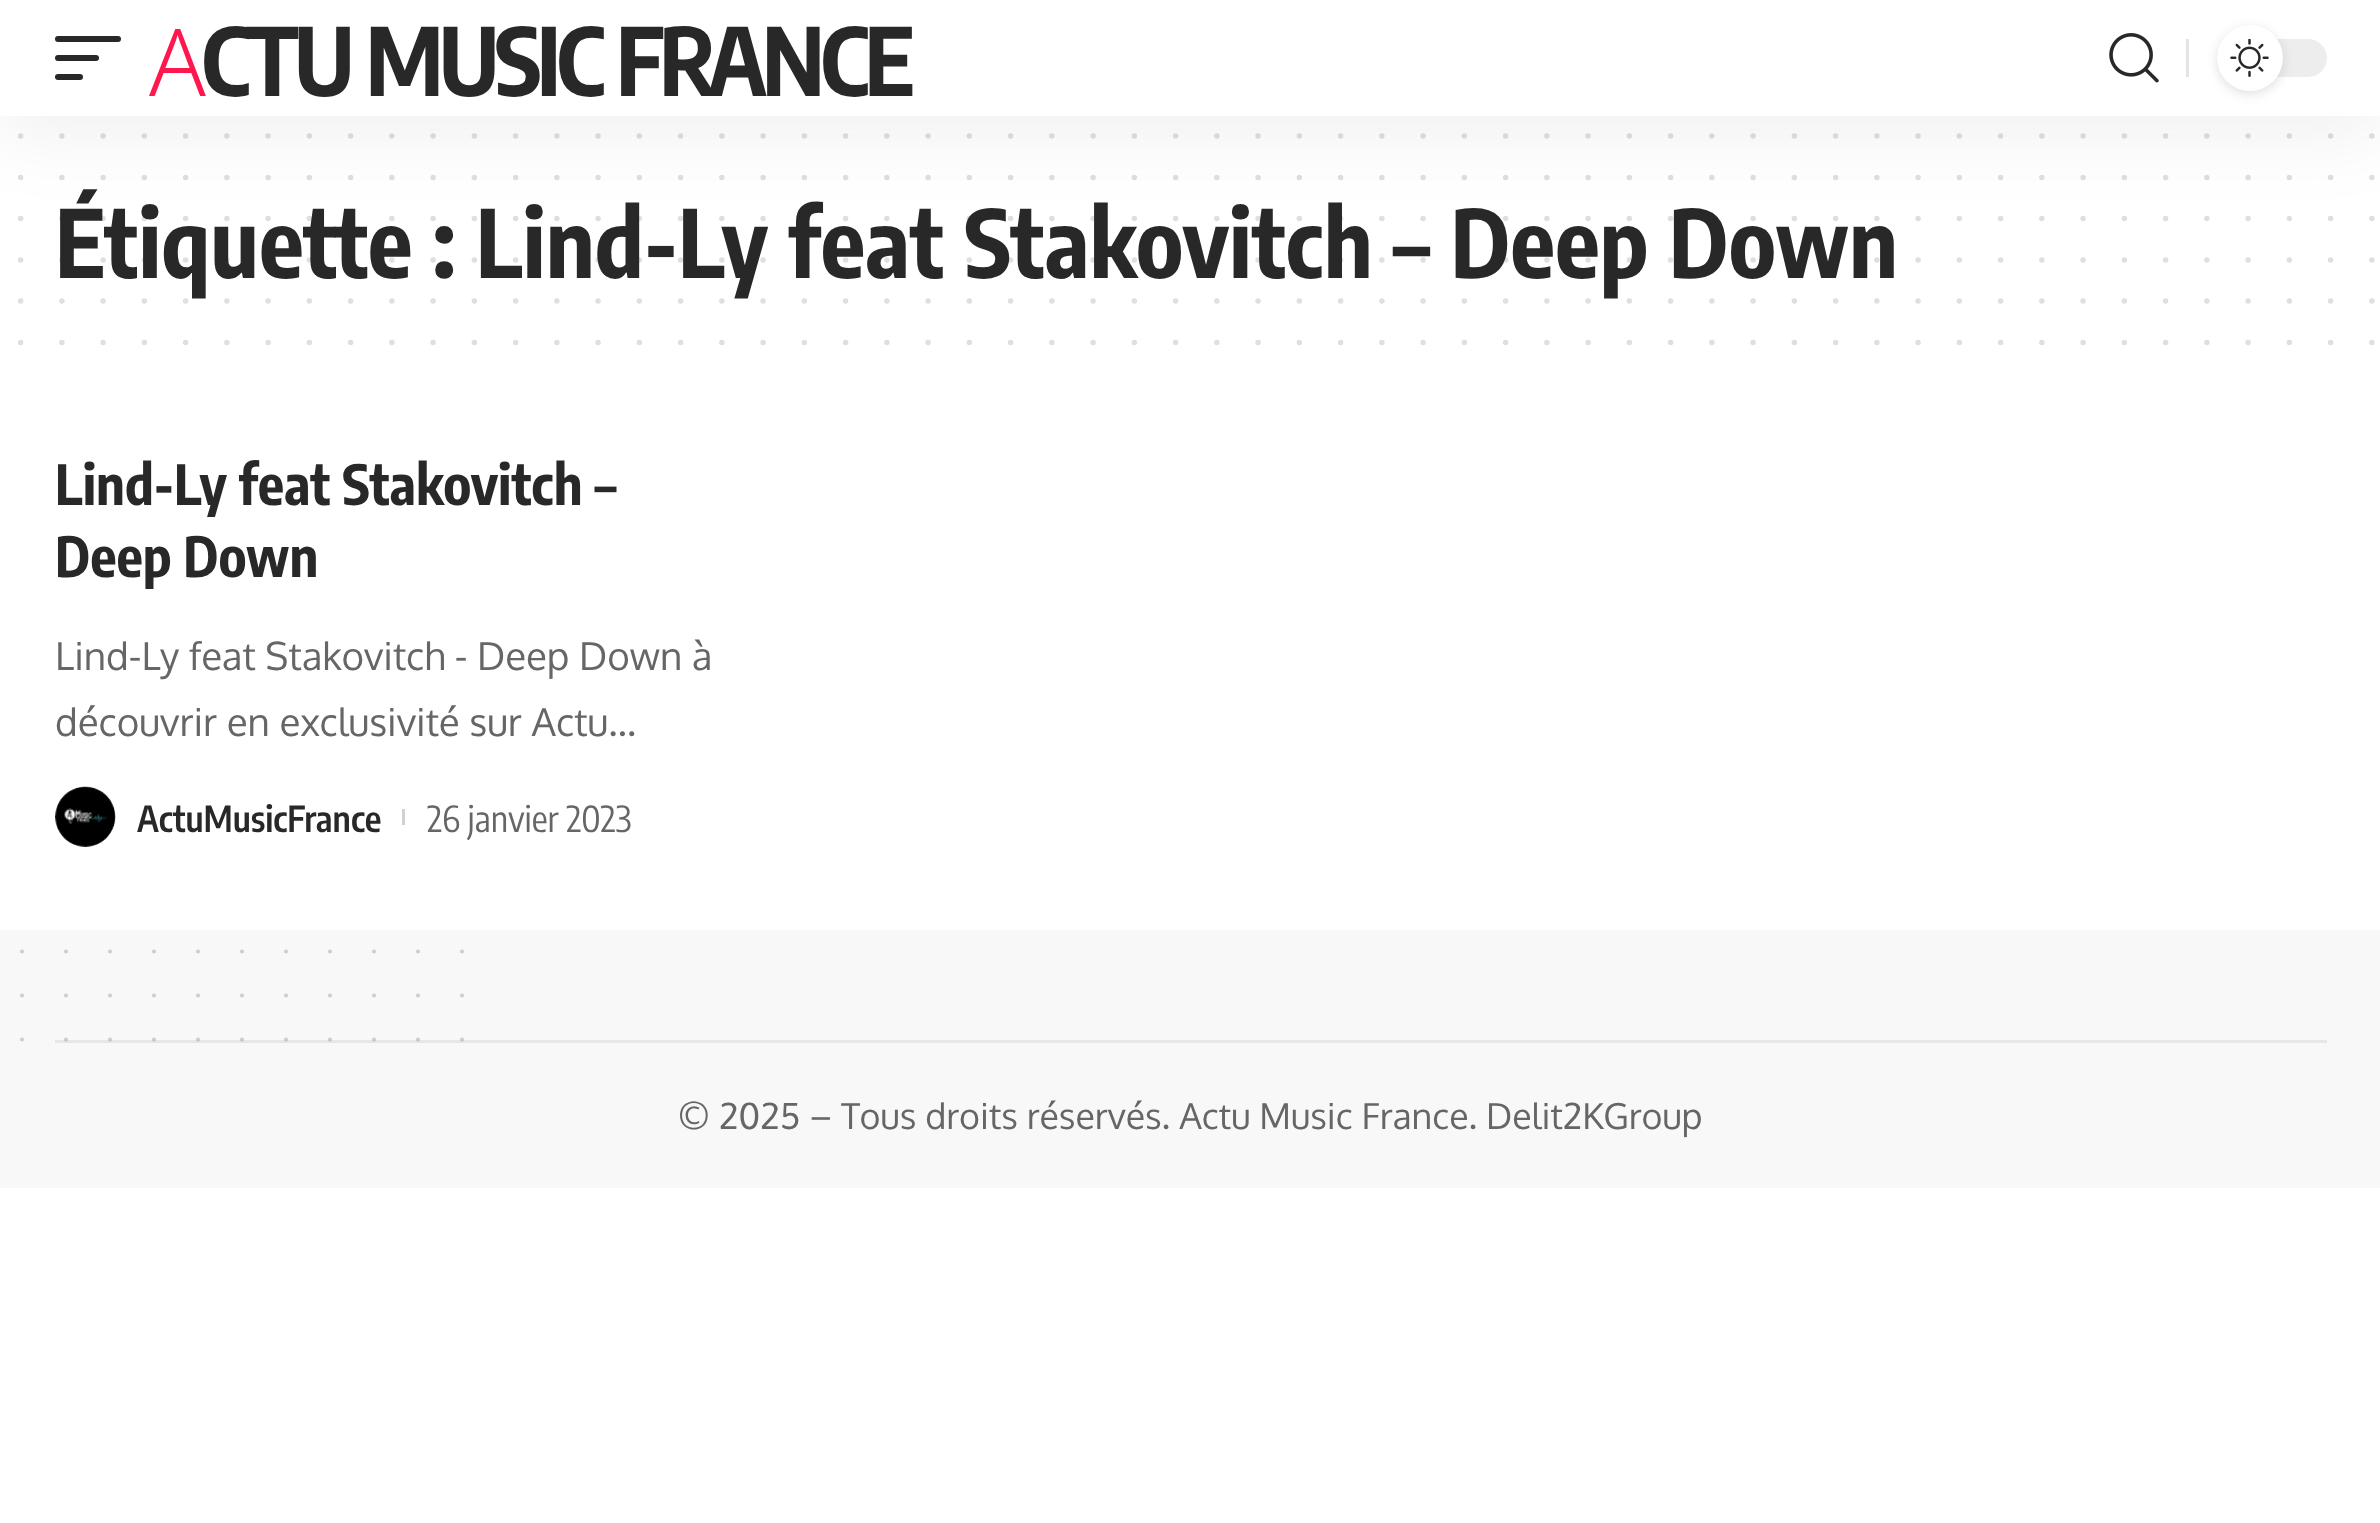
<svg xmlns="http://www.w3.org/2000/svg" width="2380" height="1523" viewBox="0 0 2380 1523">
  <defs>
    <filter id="blur1" x="-50%" y="-200%" width="200%" height="500%"><feGaussianBlur stdDeviation="41"/></filter>
    <filter id="blur2" x="-50%" y="-200%" width="200%" height="500%"><feGaussianBlur stdDeviation="5.5"/></filter>
  </defs>
  <rect width="100%" height="100%" fill="#ffffff"/>
  <path d="M20.6 136.1H2372.4" fill="none" stroke="#dfdfdf" stroke-width="5.5" stroke-linecap="round" stroke-dasharray="0 41.25"/>
  <path d="M20.6 177.4H2372.4" fill="none" stroke="#dfdfdf" stroke-width="5.5" stroke-linecap="round" stroke-dasharray="0 41.25"/>
  <text x="55" y="278" font-family="Encode Sans Condensed" font-size="93.5" font-weight="bold" fill="#282828">Étiquette : Lind-Ly feat Stakovitch – Deep Down</text>
  <path d="M20.6 218.6H2372.4" fill="none" stroke="#282828" stroke-opacity="0.15" stroke-width="5.5" stroke-linecap="round" stroke-dasharray="0 41.25"/>
  <rect x="0" y="11" width="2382" height="116" fill="#000000" fill-opacity="0.07" filter="url(#blur1)"/>
  <rect x="0" y="0" width="2380" height="116" fill="#ffffff"/>
  <rect x="55" y="36" width="66" height="6" rx="3" fill="#282828"/>
  <rect x="55" y="55" width="44" height="6" rx="3" fill="#282828"/>
  <rect x="55" y="74" width="28" height="6" rx="3" fill="#282828"/>
  <text x="149" y="96" font-family="Noto Sans" font-size="93.5" font-weight="300" letter-spacing="-4.7" fill="#ff184e">A</text>
  <text x="201" y="96" font-family="Encode Sans Condensed" font-size="93.5" font-weight="bold" letter-spacing="-4.7" fill="#282828">CTU MUSIC FRANCE</text>
  <image x="2109" y="33" width="50" height="50" href="img1.png"/>
  <rect x="2186" y="39" width="3" height="38" fill="#e4e4e4"/>
  <rect x="2217" y="39" width="110" height="38" rx="19" fill="#ededed"/>
  <rect x="2217" y="28" width="66" height="66" rx="33" fill="#000000" fill-opacity="0.12" filter="url(#blur2)"/>
  <circle cx="2250" cy="58" r="33" fill="#ffffff"/>
  <image x="2230" y="39" width="39" height="38" href="img2.png"/>
  <path d="M20.6 259.9H2372.4" fill="none" stroke="#282828" stroke-opacity="0.15" stroke-width="5.5" stroke-linecap="round" stroke-dasharray="0 41.25"/>
  <path d="M20.6 301.1H2372.4" fill="none" stroke="#dfdfdf" stroke-width="5.5" stroke-linecap="round" stroke-dasharray="0 41.25"/>
  <path d="M20.6 342.4H2372.4" fill="none" stroke="#dfdfdf" stroke-width="5.5" stroke-linecap="round" stroke-dasharray="0 41.25"/>
  <text x="55" y="505" font-family="Encode Sans Condensed" font-size="55" font-weight="bold" fill="#282828">Lind-Ly feat Stakovitch –</text>
  <text x="55" y="577" font-family="Encode Sans Condensed" font-size="55" font-weight="bold" fill="#282828">Deep Down</text>
  <text x="55" y="670" font-family="Oxygen" font-size="38.5" fill="#666666">Lind-Ly feat Stakovitch - Deep Down à</text>
  <text x="55" y="736" font-family="Oxygen" font-size="38.5" fill="#666666">découvrir en exclusivité sur Actu…</text>
  <image x="55" y="786" width="61" height="61" href="img3.png"/>
  <text x="137" y="832" font-family="Encode Sans Condensed" font-size="35.75" font-weight="600" fill="#282828">ActuMusicFrance</text>
  <rect x="402" y="809" width="3" height="16" fill="#d1d1d1"/>
  <text x="427" y="832" font-family="Encode Sans Condensed" font-size="35.75" fill="#666666">26 janvier 2023</text>
  <rect x="0" y="930" width="2380" height="258" fill="#f8f8f8"/>
  <path d="M22 951.5H462.5" fill="none" stroke="#cecece" stroke-width="4.1" stroke-linecap="round" stroke-dasharray="0 44"/>
  <path d="M22 995.5H462.5" fill="none" stroke="#cecece" stroke-width="4.1" stroke-linecap="round" stroke-dasharray="0 44"/>
  <path d="M22 1039.5H462.5" fill="none" stroke="#cecece" stroke-width="4.1" stroke-linecap="round" stroke-dasharray="0 44"/>
  <rect x="55" y="1040" width="2272" height="3" fill="#888888" fill-opacity="0.15"/>
  <text x="678" y="1129" font-family="Oxygen" font-size="35.75" fill="#666666">© 2025 – Tous droits réservés. Actu Music France. Delit2KGroup</text>
</svg>
